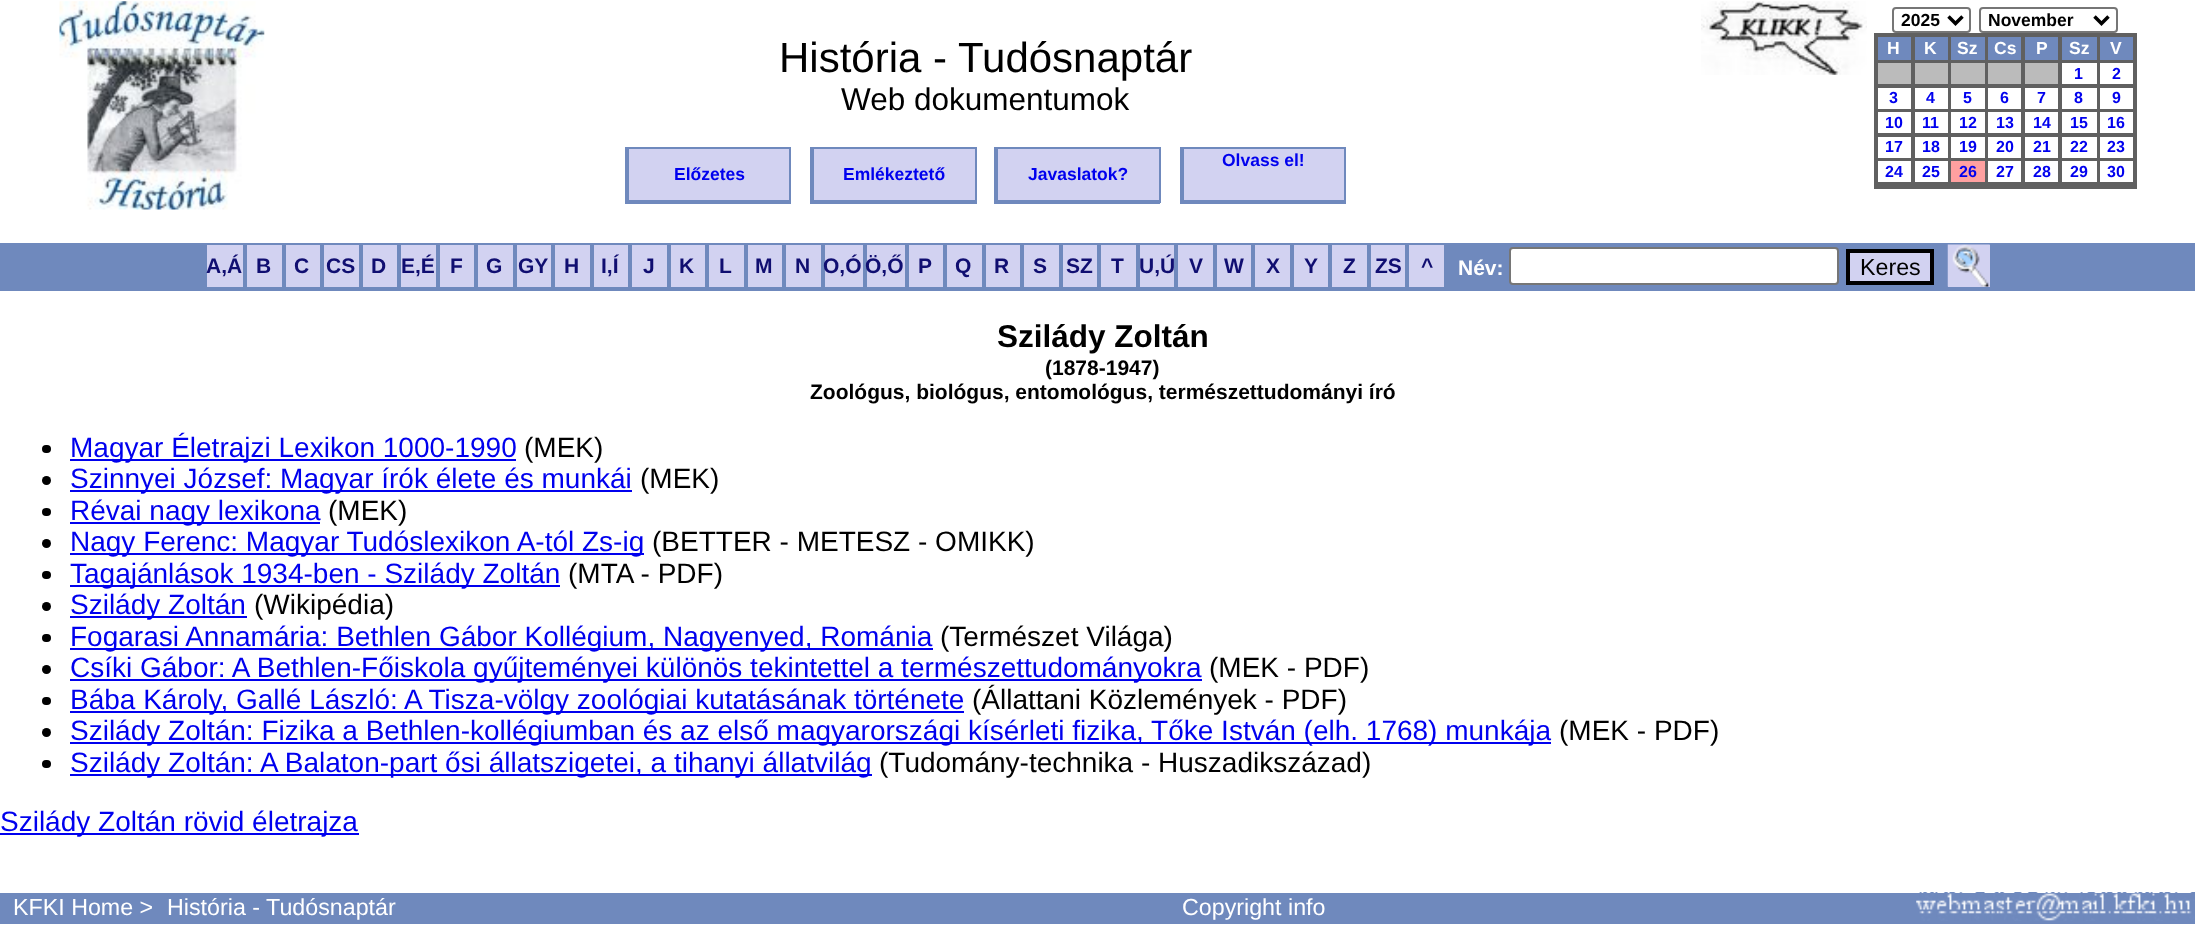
<svg xmlns="http://www.w3.org/2000/svg" width="2195" height="930" viewBox="0 0 2195 930">
  <rect width="100%" height="100%" fill="#ffffff"/>
  <image x="59" y="1" width="206" height="209" href="img1.png"/>
  <text x="779" y="72" font-family="Liberation Sans" font-size="42" fill="#000000">História - Tudósnaptár</text>
  <text x="841" y="110" font-family="Liberation Sans" font-size="31.5" fill="#000000">Web dokumentumok</text>
  <image x="1701" y="1" width="166" height="74" href="img2.png"/>
  <rect x="1893" y="8" width="77" height="24" rx="3" fill="none" stroke="#767676" stroke-width="2"/>
  <path d="M1948.5 16.5L1955.5 23.5L1962.5 16.5" fill="none" stroke="#000000" stroke-width="3.5"/>
  <text x="1901" y="26" font-family="Liberation Sans" font-size="17.5" font-weight="bold" fill="#000000">2025</text>
  <rect x="1980" y="8" width="137" height="24" rx="3" fill="none" stroke="#767676" stroke-width="2"/>
  <path d="M2094.5 16.5L2101.5 23.5L2108.5 16.5" fill="none" stroke="#000000" stroke-width="3.5"/>
  <text x="1988" y="26" font-family="Liberation Sans" font-size="17.5" font-weight="bold" fill="#000000">November</text>
  <rect x="1874" y="33" width="263" height="156" fill="#606060"/>
  <rect x="1878" y="37" width="33" height="23" fill="#6f89bd"/>
  <text x="1887" y="54" font-family="Liberation Sans" font-size="17.5" font-weight="bold" fill="#ffffff">H</text>
  <rect x="1915" y="37" width="33" height="23" fill="#6f89bd"/>
  <text x="1924" y="54" font-family="Liberation Sans" font-size="17.5" font-weight="bold" fill="#ffffff">K</text>
  <rect x="1951" y="37" width="34" height="23" fill="#6f89bd"/>
  <text x="1957" y="54" font-family="Liberation Sans" font-size="17.5" font-weight="bold" fill="#ffffff">Sz</text>
  <rect x="1988" y="37" width="33" height="23" fill="#6f89bd"/>
  <text x="1994" y="54" font-family="Liberation Sans" font-size="17.5" font-weight="bold" fill="#ffffff">Cs</text>
  <rect x="2025" y="37" width="33" height="23" fill="#6f89bd"/>
  <text x="2036" y="54" font-family="Liberation Sans" font-size="17.5" font-weight="bold" fill="#ffffff">P</text>
  <rect x="2062" y="37" width="35" height="23" fill="#6f89bd"/>
  <text x="2069" y="54" font-family="Liberation Sans" font-size="17.5" font-weight="bold" fill="#ffffff">Sz</text>
  <rect x="2100" y="37" width="33" height="23" fill="#6f89bd"/>
  <text x="2110" y="54" font-family="Liberation Sans" font-size="17.5" font-weight="bold" fill="#ffffff">V</text>
  <rect x="1878" y="63" width="33" height="21" fill="#bbbbbb"/>
  <rect x="1915" y="63" width="33" height="21" fill="#bbbbbb"/>
  <rect x="1951" y="63" width="34" height="21" fill="#bbbbbb"/>
  <rect x="1988" y="63" width="33" height="21" fill="#bbbbbb"/>
  <rect x="2025" y="63" width="33" height="21" fill="#bbbbbb"/>
  <rect x="2062" y="63" width="35" height="21" fill="#ffffff"/>
  <text x="2074" y="79" font-family="Liberation Sans" font-size="16" font-weight="bold" fill="#0000ee">1</text>
  <rect x="2100" y="63" width="33" height="21" fill="#ffffff"/>
  <text x="2112" y="79" font-family="Liberation Sans" font-size="16" font-weight="bold" fill="#0000ee">2</text>
  <rect x="1878" y="88" width="33" height="21" fill="#ffffff"/>
  <text x="1889" y="103" font-family="Liberation Sans" font-size="16" font-weight="bold" fill="#0000ee">3</text>
  <rect x="1915" y="88" width="33" height="21" fill="#ffffff"/>
  <text x="1926" y="103" font-family="Liberation Sans" font-size="16" font-weight="bold" fill="#0000ee">4</text>
  <rect x="1951" y="88" width="34" height="21" fill="#ffffff"/>
  <text x="1963" y="103" font-family="Liberation Sans" font-size="16" font-weight="bold" fill="#0000ee">5</text>
  <rect x="1988" y="88" width="33" height="21" fill="#ffffff"/>
  <text x="2000" y="103" font-family="Liberation Sans" font-size="16" font-weight="bold" fill="#0000ee">6</text>
  <rect x="2025" y="88" width="33" height="21" fill="#ffffff"/>
  <text x="2037" y="103" font-family="Liberation Sans" font-size="16" font-weight="bold" fill="#0000ee">7</text>
  <rect x="2062" y="88" width="35" height="21" fill="#ffffff"/>
  <text x="2074" y="103" font-family="Liberation Sans" font-size="16" font-weight="bold" fill="#0000ee">8</text>
  <rect x="2100" y="88" width="33" height="21" fill="#ffffff"/>
  <text x="2112" y="103" font-family="Liberation Sans" font-size="16" font-weight="bold" fill="#0000ee">9</text>
  <rect x="1878" y="112" width="33" height="21" fill="#ffffff"/>
  <text x="1885" y="128" font-family="Liberation Sans" font-size="16" font-weight="bold" fill="#0000ee">10</text>
  <rect x="1915" y="112" width="33" height="21" fill="#ffffff"/>
  <text x="1922" y="128" font-family="Liberation Sans" font-size="16" font-weight="bold" fill="#0000ee">11</text>
  <rect x="1951" y="112" width="34" height="21" fill="#ffffff"/>
  <text x="1959" y="128" font-family="Liberation Sans" font-size="16" font-weight="bold" fill="#0000ee">12</text>
  <rect x="1988" y="112" width="33" height="21" fill="#ffffff"/>
  <text x="1996" y="128" font-family="Liberation Sans" font-size="16" font-weight="bold" fill="#0000ee">13</text>
  <rect x="2025" y="112" width="33" height="21" fill="#ffffff"/>
  <text x="2033" y="128" font-family="Liberation Sans" font-size="16" font-weight="bold" fill="#0000ee">14</text>
  <rect x="2062" y="112" width="35" height="21" fill="#ffffff"/>
  <text x="2070" y="128" font-family="Liberation Sans" font-size="16" font-weight="bold" fill="#0000ee">15</text>
  <rect x="2100" y="112" width="33" height="21" fill="#ffffff"/>
  <text x="2107" y="128" font-family="Liberation Sans" font-size="16" font-weight="bold" fill="#0000ee">16</text>
  <rect x="1878" y="137" width="33" height="21" fill="#ffffff"/>
  <text x="1885" y="152" font-family="Liberation Sans" font-size="16" font-weight="bold" fill="#0000ee">17</text>
  <rect x="1915" y="137" width="33" height="21" fill="#ffffff"/>
  <text x="1922" y="152" font-family="Liberation Sans" font-size="16" font-weight="bold" fill="#0000ee">18</text>
  <rect x="1951" y="137" width="34" height="21" fill="#ffffff"/>
  <text x="1959" y="152" font-family="Liberation Sans" font-size="16" font-weight="bold" fill="#0000ee">19</text>
  <rect x="1988" y="137" width="33" height="21" fill="#ffffff"/>
  <text x="1996" y="152" font-family="Liberation Sans" font-size="16" font-weight="bold" fill="#0000ee">20</text>
  <rect x="2025" y="137" width="33" height="21" fill="#ffffff"/>
  <text x="2033" y="152" font-family="Liberation Sans" font-size="16" font-weight="bold" fill="#0000ee">21</text>
  <rect x="2062" y="137" width="35" height="21" fill="#ffffff"/>
  <text x="2070" y="152" font-family="Liberation Sans" font-size="16" font-weight="bold" fill="#0000ee">22</text>
  <rect x="2100" y="137" width="33" height="21" fill="#ffffff"/>
  <text x="2107" y="152" font-family="Liberation Sans" font-size="16" font-weight="bold" fill="#0000ee">23</text>
  <rect x="1878" y="161" width="33" height="21" fill="#ffffff"/>
  <text x="1885" y="177" font-family="Liberation Sans" font-size="16" font-weight="bold" fill="#0000ee">24</text>
  <rect x="1915" y="161" width="33" height="21" fill="#ffffff"/>
  <text x="1922" y="177" font-family="Liberation Sans" font-size="16" font-weight="bold" fill="#0000ee">25</text>
  <rect x="1951" y="161" width="34" height="21" fill="#ffa0a0"/>
  <text x="1959" y="177" font-family="Liberation Sans" font-size="16" font-weight="bold" fill="#0000ee">26</text>
  <rect x="1988" y="161" width="33" height="21" fill="#ffffff"/>
  <text x="1996" y="177" font-family="Liberation Sans" font-size="16" font-weight="bold" fill="#0000ee">27</text>
  <rect x="2025" y="161" width="33" height="21" fill="#ffffff"/>
  <text x="2033" y="177" font-family="Liberation Sans" font-size="16" font-weight="bold" fill="#0000ee">28</text>
  <rect x="2062" y="161" width="35" height="21" fill="#ffffff"/>
  <text x="2070" y="177" font-family="Liberation Sans" font-size="16" font-weight="bold" fill="#0000ee">29</text>
  <rect x="2100" y="161" width="33" height="21" fill="#ffffff"/>
  <text x="2107" y="177" font-family="Liberation Sans" font-size="16" font-weight="bold" fill="#0000ee">30</text>
  <rect x="1184" y="149" width="160" height="51" fill="#d2d2f1"/>
  <rect x="1180" y="147" width="166" height="2" fill="#6f89bd"/>
  <rect x="1344" y="147" width="2" height="56" fill="#6f89bd"/>
  <rect x="1180" y="200" width="166" height="4" fill="#6f89bd"/>
  <rect x="1180" y="147" width="4" height="56" fill="#6f89bd"/>
  <text x="1222" y="166" font-family="Liberation Sans" font-size="17.5" font-weight="bold" fill="#0000ee">Olvass el!</text>
  <rect x="629" y="149" width="160" height="51" fill="#d2d2f1"/>
  <rect x="625" y="147" width="166" height="2" fill="#6f89bd"/>
  <rect x="789" y="147" width="2" height="56" fill="#6f89bd"/>
  <rect x="625" y="200" width="166" height="4" fill="#6f89bd"/>
  <rect x="625" y="147" width="4" height="56" fill="#6f89bd"/>
  <text x="674" y="180" font-family="Liberation Sans" font-size="17.5" font-weight="bold" fill="#0000ee">Előzetes</text>
  <rect x="814" y="149" width="161" height="51" fill="#d2d2f1"/>
  <rect x="810" y="147" width="167" height="2" fill="#6f89bd"/>
  <rect x="975" y="147" width="2" height="56" fill="#6f89bd"/>
  <rect x="810" y="200" width="167" height="4" fill="#6f89bd"/>
  <rect x="810" y="147" width="4" height="56" fill="#6f89bd"/>
  <text x="843" y="180" font-family="Liberation Sans" font-size="17.5" font-weight="bold" fill="#0000ee">Emlékeztető</text>
  <rect x="998" y="149" width="161" height="51" fill="#d2d2f1"/>
  <rect x="994" y="147" width="166" height="2" fill="#6f89bd"/>
  <rect x="1159" y="147" width="2" height="56" fill="#6f89bd"/>
  <rect x="994" y="200" width="166" height="4" fill="#6f89bd"/>
  <rect x="994" y="147" width="4" height="56" fill="#6f89bd"/>
  <text x="1028" y="180" font-family="Liberation Sans" font-size="17.5" font-weight="bold" fill="#0000ee">Javaslatok?</text>
  <rect x="0" y="243" width="2195" height="48" fill="#6f89bd"/>
  <rect x="207" y="245" width="36" height="42" fill="#d2d2f1"/>
  <text x="206" y="273" font-family="Liberation Sans" font-size="21" font-weight="bold" fill="#100e71">A,Á</text>
  <rect x="247" y="245" width="35" height="42" fill="#d2d2f1"/>
  <text x="256" y="273" font-family="Liberation Sans" font-size="21" font-weight="bold" fill="#100e71">B</text>
  <rect x="286" y="245" width="34" height="42" fill="#d2d2f1"/>
  <text x="294" y="273" font-family="Liberation Sans" font-size="21" font-weight="bold" fill="#100e71">C</text>
  <rect x="324" y="245" width="35" height="42" fill="#d2d2f1"/>
  <text x="326" y="273" font-family="Liberation Sans" font-size="21" font-weight="bold" fill="#100e71">CS</text>
  <rect x="363" y="245" width="34" height="42" fill="#d2d2f1"/>
  <text x="371" y="273" font-family="Liberation Sans" font-size="21" font-weight="bold" fill="#100e71">D</text>
  <rect x="401" y="245" width="35" height="42" fill="#d2d2f1"/>
  <text x="401" y="273" font-family="Liberation Sans" font-size="21" font-weight="bold" fill="#100e71">E,É</text>
  <rect x="440" y="245" width="34" height="42" fill="#d2d2f1"/>
  <text x="450" y="273" font-family="Liberation Sans" font-size="21" font-weight="bold" fill="#100e71">F</text>
  <rect x="478" y="245" width="35" height="42" fill="#d2d2f1"/>
  <text x="486" y="273" font-family="Liberation Sans" font-size="21" font-weight="bold" fill="#100e71">G</text>
  <rect x="517" y="245" width="34" height="42" fill="#d2d2f1"/>
  <text x="518" y="273" font-family="Liberation Sans" font-size="21" font-weight="bold" fill="#100e71">GY</text>
  <rect x="555" y="245" width="35" height="42" fill="#d2d2f1"/>
  <text x="564" y="273" font-family="Liberation Sans" font-size="21" font-weight="bold" fill="#100e71">H</text>
  <rect x="594" y="245" width="34" height="42" fill="#d2d2f1"/>
  <text x="601" y="273" font-family="Liberation Sans" font-size="21" font-weight="bold" fill="#100e71">I,Í</text>
  <rect x="632" y="245" width="35" height="42" fill="#d2d2f1"/>
  <text x="643" y="273" font-family="Liberation Sans" font-size="21" font-weight="bold" fill="#100e71">J</text>
  <rect x="671" y="245" width="34" height="42" fill="#d2d2f1"/>
  <text x="679" y="273" font-family="Liberation Sans" font-size="21" font-weight="bold" fill="#100e71">K</text>
  <rect x="709" y="245" width="35" height="42" fill="#d2d2f1"/>
  <text x="719" y="273" font-family="Liberation Sans" font-size="21" font-weight="bold" fill="#100e71">L</text>
  <rect x="748" y="245" width="34" height="42" fill="#d2d2f1"/>
  <text x="755" y="273" font-family="Liberation Sans" font-size="21" font-weight="bold" fill="#100e71">M</text>
  <rect x="786" y="245" width="35" height="42" fill="#d2d2f1"/>
  <text x="795" y="273" font-family="Liberation Sans" font-size="21" font-weight="bold" fill="#100e71">N</text>
  <rect x="825" y="245" width="38" height="42" fill="#d2d2f1"/>
  <text x="823" y="273" font-family="Liberation Sans" font-size="21" font-weight="bold" fill="#100e71">O,Ó</text>
  <rect x="867" y="245" width="38" height="42" fill="#d2d2f1"/>
  <text x="865" y="273" font-family="Liberation Sans" font-size="21" font-weight="bold" fill="#100e71">Ö,Ő</text>
  <rect x="909" y="245" width="34" height="42" fill="#d2d2f1"/>
  <text x="918" y="273" font-family="Liberation Sans" font-size="21" font-weight="bold" fill="#100e71">P</text>
  <rect x="947" y="245" width="35" height="42" fill="#d2d2f1"/>
  <text x="955" y="273" font-family="Liberation Sans" font-size="21" font-weight="bold" fill="#100e71">Q</text>
  <rect x="986" y="245" width="34" height="42" fill="#d2d2f1"/>
  <text x="994" y="273" font-family="Liberation Sans" font-size="21" font-weight="bold" fill="#100e71">R</text>
  <rect x="1024" y="245" width="35" height="42" fill="#d2d2f1"/>
  <text x="1033" y="273" font-family="Liberation Sans" font-size="21" font-weight="bold" fill="#100e71">S</text>
  <rect x="1063" y="245" width="34" height="42" fill="#d2d2f1"/>
  <text x="1066" y="273" font-family="Liberation Sans" font-size="21" font-weight="bold" fill="#100e71">SZ</text>
  <rect x="1101" y="245" width="35" height="42" fill="#d2d2f1"/>
  <text x="1111" y="273" font-family="Liberation Sans" font-size="21" font-weight="bold" fill="#100e71">T</text>
  <rect x="1140" y="245" width="34" height="42" fill="#d2d2f1"/>
  <text x="1139" y="273" font-family="Liberation Sans" font-size="21" font-weight="bold" fill="#100e71">U,Ú</text>
  <rect x="1178" y="245" width="35" height="42" fill="#d2d2f1"/>
  <text x="1189" y="273" font-family="Liberation Sans" font-size="21" font-weight="bold" fill="#100e71">V</text>
  <rect x="1217" y="245" width="34" height="42" fill="#d2d2f1"/>
  <text x="1224" y="273" font-family="Liberation Sans" font-size="21" font-weight="bold" fill="#100e71">W</text>
  <rect x="1255" y="245" width="35" height="42" fill="#d2d2f1"/>
  <text x="1266" y="273" font-family="Liberation Sans" font-size="21" font-weight="bold" fill="#100e71">X</text>
  <rect x="1294" y="245" width="34" height="42" fill="#d2d2f1"/>
  <text x="1304" y="273" font-family="Liberation Sans" font-size="21" font-weight="bold" fill="#100e71">Y</text>
  <rect x="1332" y="245" width="35" height="42" fill="#d2d2f1"/>
  <text x="1343" y="273" font-family="Liberation Sans" font-size="21" font-weight="bold" fill="#100e71">Z</text>
  <rect x="1371" y="245" width="34" height="42" fill="#d2d2f1"/>
  <text x="1375" y="273" font-family="Liberation Sans" font-size="21" font-weight="bold" fill="#100e71">ZS</text>
  <rect x="1409" y="245" width="35" height="42" fill="#d2d2f1"/>
  <text x="1421" y="273" font-family="Liberation Sans" font-size="21" font-weight="bold" fill="#100e71">^</text>
  <text x="1458" y="275" font-family="Liberation Sans" font-size="21" font-weight="bold" fill="#ffffff">Név:</text>
  <rect x="1510" y="248" width="328" height="36" rx="3" fill="#ffffff" stroke="#767676" stroke-width="2"/>
  <rect x="1848" y="251" width="84" height="32" fill="#d2d2f1" stroke="#000000" stroke-width="4"/>
  <text x="1860" y="275" font-family="Liberation Sans" font-size="23.25" fill="#000000">Keres</text>
  <rect x="1948" y="245" width="42" height="42" fill="#d2d2f1"/>
  <image x="1947" y="244" width="43" height="43" href="img3.png"/>
  <text x="997" y="347" font-family="Liberation Sans" font-size="31.5" font-weight="bold" fill="#000000">Szilády Zoltán</text>
  <text x="1045" y="375" font-family="Liberation Sans" font-size="21" font-weight="bold" fill="#000000">(1878-1947)</text>
  <text x="810" y="399" font-family="Liberation Sans" font-size="21" font-weight="bold" fill="#000000">Zoológus, biológus, entomológus, természettudományi író</text>
  <rect x="42" y="445" width="9" height="8" rx="4" fill="#000000"/>
  <rect x="70" y="459" width="446" height="2" fill="#0000ee"/>
  <text x="70" y="457" font-family="Liberation Sans" font-size="28" fill="#0000ee">Magyar Életrajzi Lexikon 1000-1990</text>
  <text x="524" y="457" font-family="Liberation Sans" font-size="28" fill="#000000">(MEK)</text>
  <circle cx="46.5" cy="480.5" r="4.5" fill="#000000"/>
  <rect x="70" y="490" width="562" height="2" fill="#0000ee"/>
  <text x="70" y="488" font-family="Liberation Sans" font-size="28" fill="#0000ee">Szinnyei József: Magyar írók élete és munkái</text>
  <text x="640" y="488" font-family="Liberation Sans" font-size="28" fill="#000000">(MEK)</text>
  <rect x="42" y="508" width="9" height="8" rx="4" fill="#000000"/>
  <rect x="70" y="522" width="250" height="2" fill="#0000ee"/>
  <text x="70" y="520" font-family="Liberation Sans" font-size="28" fill="#0000ee">Révai nagy lexikona</text>
  <text x="328" y="520" font-family="Liberation Sans" font-size="28" fill="#000000">(MEK)</text>
  <circle cx="46.5" cy="543.5" r="4.5" fill="#000000"/>
  <rect x="70" y="553" width="574" height="2" fill="#0000ee"/>
  <text x="70" y="551" font-family="Liberation Sans" font-size="28" fill="#0000ee">Nagy Ferenc: Magyar Tudóslexikon A-tól Zs-ig</text>
  <text x="652" y="551" font-family="Liberation Sans" font-size="28" fill="#000000">(BETTER - METESZ - OMIKK)</text>
  <rect x="42" y="571" width="9" height="8" rx="4" fill="#000000"/>
  <rect x="70" y="585" width="490" height="2" fill="#0000ee"/>
  <text x="70" y="583" font-family="Liberation Sans" font-size="28" fill="#0000ee">Tagajánlások 1934-ben - Szilády Zoltán</text>
  <text x="568" y="583" font-family="Liberation Sans" font-size="28" fill="#000000">(MTA - PDF)</text>
  <circle cx="46.5" cy="606.5" r="4.5" fill="#000000"/>
  <rect x="70" y="616" width="177" height="2" fill="#0000ee"/>
  <text x="70" y="614" font-family="Liberation Sans" font-size="28" fill="#0000ee">Szilády Zoltán</text>
  <text x="254" y="614" font-family="Liberation Sans" font-size="28" fill="#000000">(Wikipédia)</text>
  <rect x="42" y="634" width="9" height="8" rx="4" fill="#000000"/>
  <rect x="70" y="648" width="863" height="2" fill="#0000ee"/>
  <text x="70" y="646" font-family="Liberation Sans" font-size="28" fill="#0000ee">Fogarasi Annamária: Bethlen Gábor Kollégium, Nagyenyed, Románia</text>
  <text x="940" y="646" font-family="Liberation Sans" font-size="28" fill="#000000">(Természet Világa)</text>
  <circle cx="46.5" cy="669.5" r="4.5" fill="#000000"/>
  <rect x="70" y="679" width="1132" height="2" fill="#0000ee"/>
  <text x="70" y="677" font-family="Liberation Sans" font-size="28" fill="#0000ee">Csíki Gábor: A Bethlen-Főiskola gyűjteményei különös tekintettel a természettudományokra</text>
  <text x="1209" y="677" font-family="Liberation Sans" font-size="28" fill="#000000">(MEK - PDF)</text>
  <rect x="42" y="697" width="9" height="8" rx="4" fill="#000000"/>
  <rect x="70" y="711" width="894" height="2" fill="#0000ee"/>
  <text x="70" y="709" font-family="Liberation Sans" font-size="28" fill="#0000ee">Bába Károly, Gallé László: A Tisza-völgy zoológiai kutatásának története</text>
  <text x="972" y="709" font-family="Liberation Sans" font-size="28" fill="#000000">(Állattani Közlemények - PDF)</text>
  <circle cx="46.5" cy="732.5" r="4.5" fill="#000000"/>
  <rect x="70" y="742" width="1481" height="2" fill="#0000ee"/>
  <text x="70" y="740" font-family="Liberation Sans" font-size="28" fill="#0000ee">Szilády Zoltán: Fizika a Bethlen-kollégiumban és az első magyarországi kísérleti fizika, Tőke István (elh. 1768) munkája</text>
  <text x="1559" y="740" font-family="Liberation Sans" font-size="28" fill="#000000">(MEK - PDF)</text>
  <rect x="42" y="760" width="9" height="8" rx="4" fill="#000000"/>
  <rect x="70" y="774" width="802" height="2" fill="#0000ee"/>
  <text x="70" y="772" font-family="Liberation Sans" font-size="28" fill="#0000ee">Szilády Zoltán: A Balaton-part ősi állatszigetei, a tihanyi állatvilág</text>
  <text x="879" y="772" font-family="Liberation Sans" font-size="28" fill="#000000">(Tudomány-technika - Huszadikszázad)</text>
  <rect x="0" y="833" width="359" height="2" fill="#0000ee"/>
  <text x="0" y="831" font-family="Liberation Sans" font-size="28" fill="#0000ee">Szilády Zoltán rövid életrajza</text>
  <rect x="0" y="893" width="2195" height="31" fill="#6f89bd"/>
  <text x="13" y="915" font-family="Liberation Sans" font-size="23.25" fill="#ffffff">KFKI Home &gt;</text>
  <text x="167" y="915" font-family="Liberation Sans" font-size="23.25" fill="#ffffff">História - Tudósnaptár</text>
  <text x="1182" y="915" font-family="Liberation Sans" font-size="23.25" fill="#ffffff">Copyright info</text>
  <image x="1916" y="892" width="279" height="29" href="img4.png"/>
</svg>
